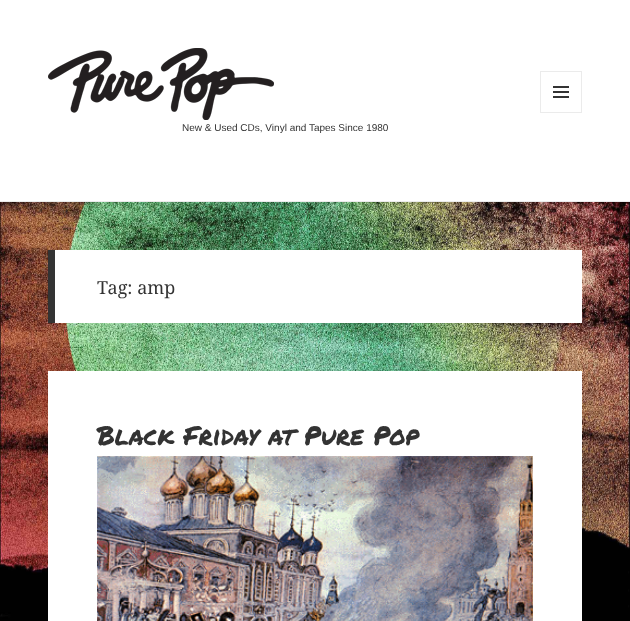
<svg xmlns="http://www.w3.org/2000/svg" width="630" height="621" viewBox="0 0 630 621">
  <rect width="100%" height="100%" fill="#ffffff"/>
  <image x="0" y="202" width="630" height="419" href="img1.png"/>
  <rect x="0" y="201" width="630" height="1" fill="#ebebeb"/>
  <image x="48" y="48" width="226" height="72" href="img2.png"/>
  <rect x="540.5" y="71.5" width="41" height="41" fill="none" stroke="#ebebeb"/>
  <image x="553" y="86" width="16" height="12" href="img3.png"/>
  <text x="182" y="131" font-family="Liberation Sans" font-size="10" fill="#333333">New &amp; Used CDs, Vinyl and Tapes Since 1980</text>
  <rect x="55" y="250" width="527" height="73" fill="#ffffff"/>
  <rect x="48" y="250" width="7" height="73" fill="#333333"/>
  <text x="97" y="294" font-family="Noto Serif" font-size="18" fill="#333333">Tag: amp</text>
  <rect x="48" y="371" width="534" height="250" fill="#ffffff"/>
  <text x="97" y="445" font-family="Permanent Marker" font-size="26" fill="#333333">Black Friday at Pure Pop</text>
  <image x="97" y="456" width="436" height="165" href="img4.png"/>
</svg>
